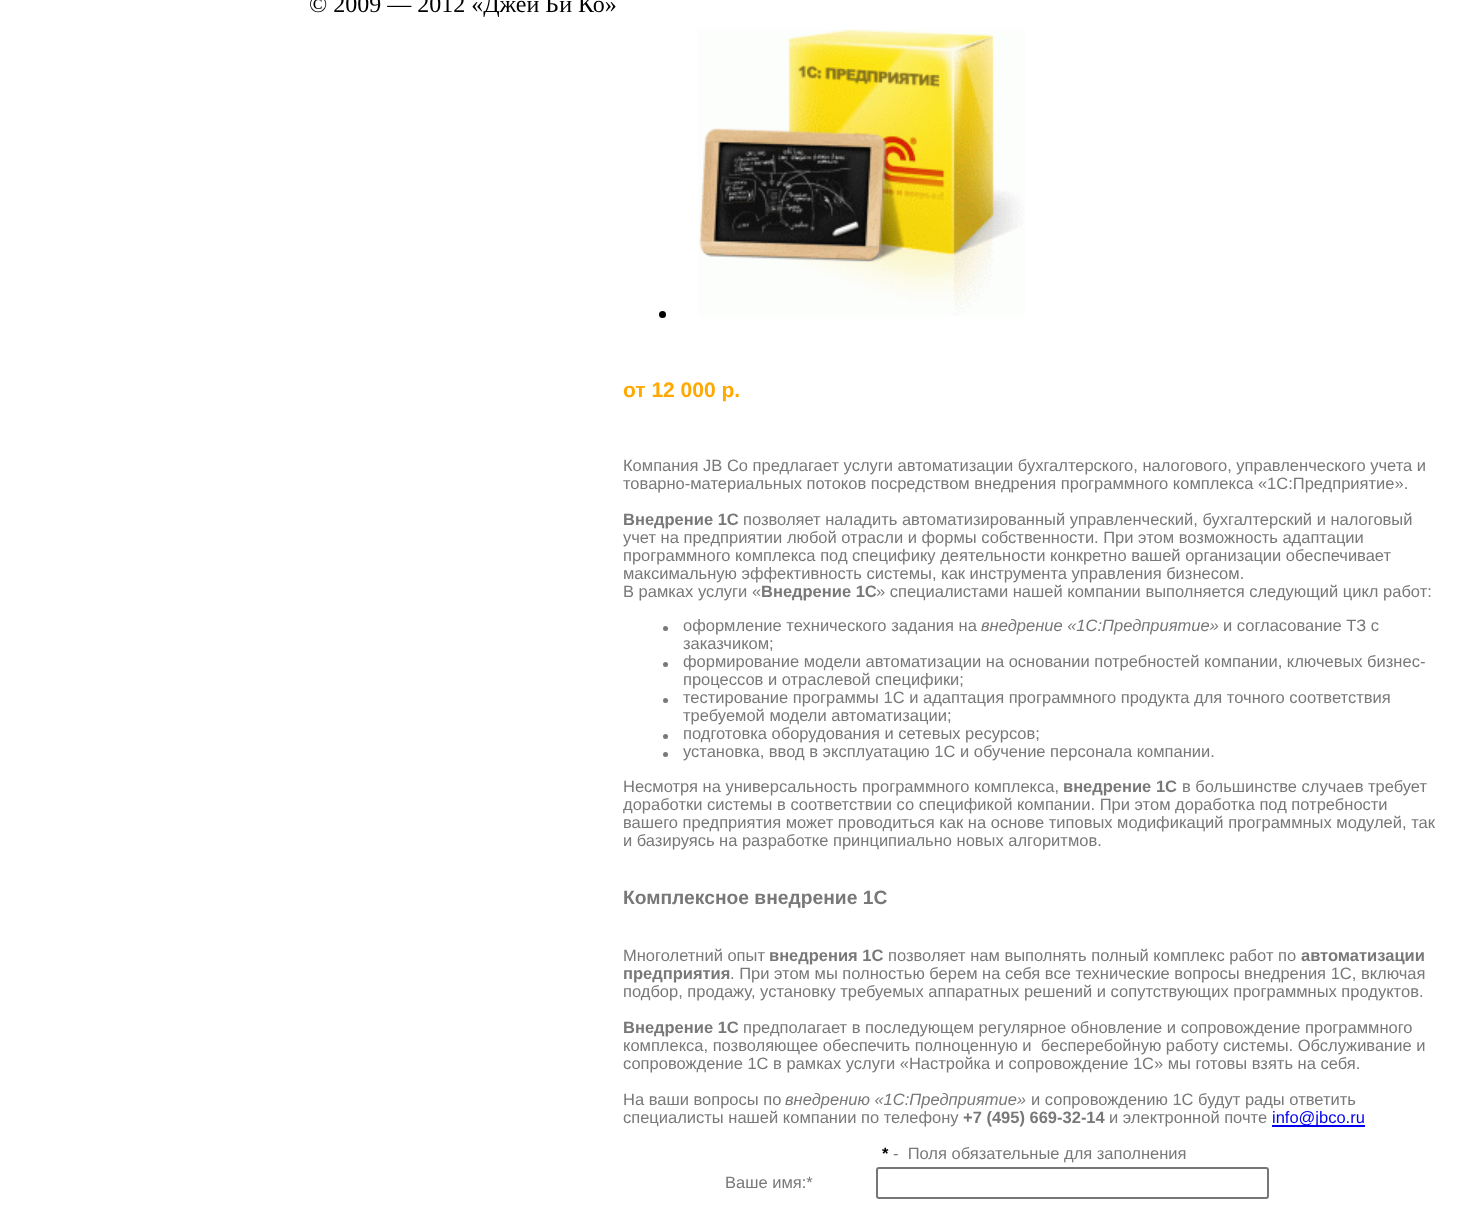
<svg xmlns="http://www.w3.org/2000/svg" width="1457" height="1207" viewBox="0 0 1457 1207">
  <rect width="100%" height="100%" fill="#ffffff"/>
  <text x="309" y="12" font-family="Liberation Serif" font-size="24" fill="#000000">© 2009 — 2012 «Джей Би Ко»</text>
  <circle cx="662.5" cy="314.5" r="3.5" fill="#000000"/>
  <image x="698" y="29" width="327" height="287" href="img1.png"/>
  <text x="623" y="397" font-family="Liberation Sans" font-size="21" font-weight="bold" fill="#ffa800">от 12 000 р.</text>
  <text x="623" y="471" font-family="Liberation Sans" font-size="16.5" fill="#787878">Компания JB Co предлагает услуги автоматизации бухгалтерского, налогового, управленческого учета и</text>
  <text x="623" y="489" font-family="Liberation Sans" font-size="16.5" fill="#787878">товарно-материальных потоков посредством внедрения программного комплекса «1С:Предприятие».</text>
  <text x="623" y="525" font-family="Liberation Sans" font-size="16.5" font-weight="bold" fill="#787878">Внедрение 1С</text>
  <text x="743" y="525" font-family="Liberation Sans" font-size="16.5" fill="#787878">позволяет наладить автоматизированный управленческий, бухгалтерский и налоговый</text>
  <text x="623" y="543" font-family="Liberation Sans" font-size="16.5" fill="#787878">учет на предприятии любой отрасли и формы собственности. При этом возможность адаптации</text>
  <text x="623" y="561" font-family="Liberation Sans" font-size="16.5" fill="#787878">программного комплекса под специфику деятельности конкретно вашей организации обеспечивает</text>
  <text x="623" y="579" font-family="Liberation Sans" font-size="16.5" fill="#787878">максимальную эффективность системы, как инструмента управления бизнесом.</text>
  <text x="623" y="597" font-family="Liberation Sans" font-size="16.5" fill="#787878">В рамках услуги «</text>
  <text x="761" y="597" font-family="Liberation Sans" font-size="16.5" font-weight="bold" fill="#787878">Внедрение 1С</text>
  <text x="876" y="597" font-family="Liberation Sans" font-size="16.5" fill="#787878">» специалистами нашей компании выполняется следующий цикл работ:</text>
  <circle cx="665.5" cy="628.5" r="2.5" fill="#787878"/>
  <text x="683" y="631" font-family="Liberation Sans" font-size="16.5" fill="#787878">оформление технического задания на</text>
  <text x="981" y="631" font-family="Liberation Sans" font-size="16.5" font-style="italic" fill="#787878">внедрение «1С:Предприятие»</text>
  <text x="1223" y="631" font-family="Liberation Sans" font-size="16.5" fill="#787878">и согласование ТЗ с</text>
  <text x="683" y="649" font-family="Liberation Sans" font-size="16.5" fill="#787878">заказчиком;</text>
  <circle cx="665.5" cy="664.5" r="2.5" fill="#787878"/>
  <text x="683" y="667" font-family="Liberation Sans" font-size="16.5" fill="#787878">формирование модели автоматизации на основании потребностей компании, ключевых бизнес-</text>
  <text x="683" y="685" font-family="Liberation Sans" font-size="16.5" fill="#787878">процессов и отраслевой специфики;</text>
  <circle cx="665.5" cy="700.5" r="2.5" fill="#787878"/>
  <text x="683" y="703" font-family="Liberation Sans" font-size="16.5" fill="#787878">тестирование программы 1С и адаптация программного продукта для точного соответствия</text>
  <text x="683" y="721" font-family="Liberation Sans" font-size="16.5" fill="#787878">требуемой модели автоматизации;</text>
  <circle cx="665.5" cy="736.5" r="2.5" fill="#787878"/>
  <text x="683" y="739" font-family="Liberation Sans" font-size="16.5" fill="#787878">подготовка оборудования и сетевых ресурсов;</text>
  <circle cx="665.5" cy="754.5" r="2.5" fill="#787878"/>
  <text x="683" y="757" font-family="Liberation Sans" font-size="16.5" fill="#787878">установка, ввод в эксплуатацию 1С и обучение персонала компании.</text>
  <text x="623" y="792" font-family="Liberation Sans" font-size="16.5" fill="#787878">Несмотря на универсальность программного комплекса,</text>
  <text x="1063" y="792" font-family="Liberation Sans" font-size="16.5" font-weight="bold" fill="#787878">внедрение 1С</text>
  <text x="1182" y="792" font-family="Liberation Sans" font-size="16.5" fill="#787878">в большинстве случаев требует</text>
  <text x="623" y="810" font-family="Liberation Sans" font-size="16.5" fill="#787878">доработки системы в соответствии со спецификой компании. При этом доработка под потребности</text>
  <text x="623" y="828" font-family="Liberation Sans" font-size="16.5" fill="#787878">вашего предприятия может проводиться как на основе типовых модификаций программных модулей, так</text>
  <text x="623" y="846" font-family="Liberation Sans" font-size="16.5" fill="#787878">и базируясь на разработке принципиально новых алгоритмов.</text>
  <text x="623" y="904" font-family="Liberation Sans" font-size="19.25" font-weight="bold" fill="#787878">Комплексное внедрение 1С</text>
  <text x="623" y="961" font-family="Liberation Sans" font-size="16.5" fill="#787878">Многолетний опыт</text>
  <text x="769" y="961" font-family="Liberation Sans" font-size="16.5" font-weight="bold" fill="#787878">внедрения 1С</text>
  <text x="888" y="961" font-family="Liberation Sans" font-size="16.5" fill="#787878">позволяет нам выполнять полный комплекс работ по</text>
  <text x="1301" y="961" font-family="Liberation Sans" font-size="16.5" font-weight="bold" fill="#787878">автоматизации</text>
  <text x="623" y="979" font-family="Liberation Sans" font-size="16.5" font-weight="bold" fill="#787878">предприятия</text>
  <text x="730" y="979" font-family="Liberation Sans" font-size="16.5" fill="#787878">. При этом мы полностью берем на себя все технические вопросы внедрения 1С, включая</text>
  <text x="623" y="997" font-family="Liberation Sans" font-size="16.5" fill="#787878">подбор, продажу, установку требуемых аппаратных решений и сопутствующих программных продуктов.</text>
  <text x="623" y="1033" font-family="Liberation Sans" font-size="16.5" font-weight="bold" fill="#787878">Внедрение 1С</text>
  <text x="743" y="1033" font-family="Liberation Sans" font-size="16.5" fill="#787878">предполагает в последующем регулярное обновление и сопровождение программного</text>
  <text x="623" y="1051" font-family="Liberation Sans" font-size="16.5" fill="#787878" xml:space="preserve">комплекса, позволяющее обеспечить полноценную и  бесперебойную работу системы. Обслуживание и</text>
  <text x="623" y="1069" font-family="Liberation Sans" font-size="16.5" fill="#787878">сопровождение 1С в рамках услуги «Настройка и сопровождение 1С» мы готовы взять на себя.</text>
  <text x="623" y="1105" font-family="Liberation Sans" font-size="16.5" fill="#787878">На ваши вопросы по</text>
  <text x="785" y="1105" font-family="Liberation Sans" font-size="16.5" font-style="italic" fill="#787878">внедрению «1С:Предприятие»</text>
  <text x="1031" y="1105" font-family="Liberation Sans" font-size="16.5" fill="#787878">и сопровождению 1С будут рады ответить</text>
  <text x="623" y="1123" font-family="Liberation Sans" font-size="16.5" fill="#787878">специалисты нашей компании по телефону</text>
  <text x="963" y="1123" font-family="Liberation Sans" font-size="16.5" font-weight="bold" fill="#787878">+7 (495) 669-32-14</text>
  <text x="1109" y="1123" font-family="Liberation Sans" font-size="16.5" fill="#787878">и электронной почте</text>
  <rect x="1272" y="1125" width="93" height="2" fill="#0000ee"/>
  <text x="1272" y="1123" font-family="Liberation Sans" font-size="16.5" fill="#0000ee">info@jbco.ru</text>
  <text x="882" y="1159" font-family="Liberation Sans" font-size="16.5" font-weight="bold" fill="#000000">*</text>
  <text x="893" y="1159" font-family="Liberation Sans" font-size="16.5" fill="#787878" xml:space="preserve">-  Поля обязательные для заполнения</text>
  <text x="725" y="1188" font-family="Liberation Sans" font-size="16.5" fill="#787878">Ваше имя:*</text>
  <rect x="877" y="1168" width="391" height="30" rx="2" fill="none" stroke="#767676" stroke-width="2"/>
</svg>
